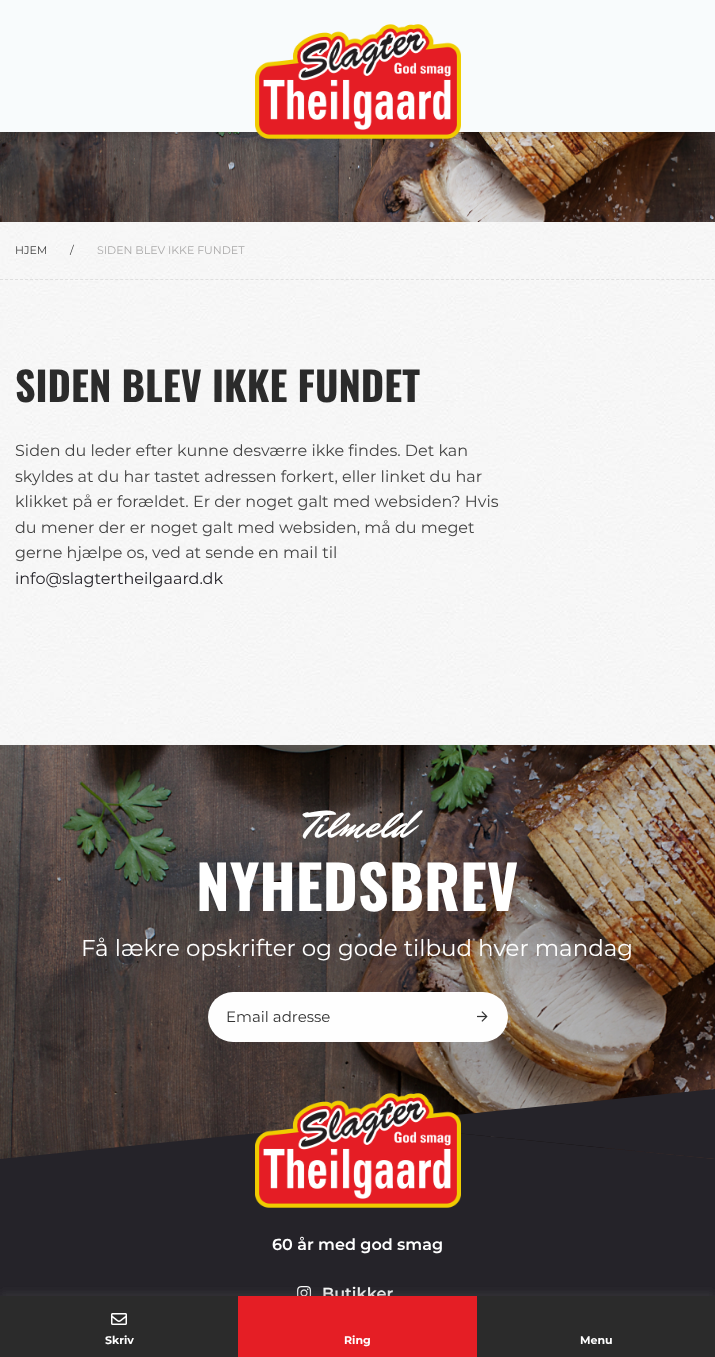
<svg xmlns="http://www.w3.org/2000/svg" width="715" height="1357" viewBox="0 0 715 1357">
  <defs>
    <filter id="blur1" x="-50%" y="-200%" width="200%" height="500%"><feGaussianBlur stdDeviation="4"/></filter>
    <filter id="blur2" x="-50%" y="-200%" width="200%" height="500%"><feGaussianBlur stdDeviation="3.5"/></filter>
  </defs>
  <rect width="100%" height="100%" fill="#ffffff"/>
  <image x="0" y="222" width="715" height="523" href="img1.png"/>
  <image x="0" y="132" width="715" height="90" href="img3.png"/>
  <rect x="0" y="2" width="715" height="132" fill="#000000" fill-opacity="0.25" filter="url(#blur1)"/>
  <rect x="0" y="0" width="715" height="132" fill="#f8fbfc"/>
  <image x="255" y="24" width="206" height="115" href="img2.png"/>
  <path d="M0 279.5H715" fill="none" stroke="#dfdfdf" stroke-dasharray="3 2.01"/>
  <text x="15" y="254" font-family="Montserrat" font-size="11" fill="#454545">HJEM</text>
  <text x="70" y="254" font-family="Montserrat" font-size="11" fill="#454545">/</text>
  <text x="97" y="254" font-family="Montserrat" font-size="11" fill="#abaaaa">SIDEN BLEV IKKE FUNDET</text>
  <text x="15" y="402" font-family="Oswald" font-size="40" font-weight="bold" fill="#2b2b2b">SIDEN BLEV IKKE FUNDET</text>
  <text x="15" y="456" font-family="Montserrat" font-size="16" fill="#454545">Siden du leder efter kunne desværre ikke findes. Det kan</text>
  <text x="15" y="482" font-family="Montserrat" font-size="16" fill="#454545">skyldes at du har tastet adressen forkert, eller linket du har</text>
  <text x="15" y="507" font-family="Montserrat" font-size="16" fill="#454545">klikket på er forældet. Er der noget galt med websiden? Hvis</text>
  <text x="15" y="533" font-family="Montserrat" font-size="16" fill="#454545">du mener der er noget galt med websiden, må du meget</text>
  <text x="15" y="558" font-family="Montserrat" font-size="16" fill="#454545">gerne hjælpe os, ved at sende en mail til</text>
  <text x="15" y="584" font-family="Montserrat" font-size="16" fill="#252329">info@slagtertheilgaard.dk</text>
  <rect x="0" y="1159" width="715" height="137" fill="#252329"/>
  <image x="0" y="745" width="715" height="414" href="img4.png"/>
  <text x="305" y="837" font-family="Mr Dafoe" font-size="40" fill="#ffffff">Tilmeld</text>
  <text x="196" y="911" font-family="Oswald" font-size="60" font-weight="bold" fill="#ffffff">NYHEDSBREV</text>
  <text x="81" y="956" font-family="Montserrat" font-size="23" fill="#ffffff">Få lækre opskrifter og gode tilbud hver mandag</text>
  <rect x="208" y="992" width="300" height="50" rx="25" fill="#fefefe"/>
  <text x="226" y="1022" font-family="Montserrat" font-size="15" fill="#333333">Email adresse</text>
  <image x="477" y="1011" width="11" height="11" href="img5.png"/>
  <path d="M715 1089V1159L366 1124Z" fill="#252329"/>
  <path d="M715 1159H0L349 1124H366Z" fill="#252329"/>
  <image x="255" y="1093" width="206" height="115" href="img6.png"/>
  <text x="272" y="1250" font-family="Montserrat" font-size="16" font-weight="600" fill="#ffffff">60 år med god smag</text>
  <image x="297" y="1286" width="15" height="10" href="img7.png"/>
  <text x="322" y="1299" font-family="Montserrat" font-size="16" font-weight="600" fill="#ffffff">Butikker</text>
  <rect x="1" y="1292" width="713" height="59" fill="#4c4c4c" fill-opacity="0.3" filter="url(#blur2)"/>
  <rect x="0" y="1296" width="715" height="61" fill="#2b2b2b"/>
  <image x="111" y="1313" width="16" height="12" href="img8.png"/>
  <text x="105" y="1344" font-family="Montserrat" font-size="11" font-weight="bold" fill="#ffffff">Skriv</text>
  <rect x="238" y="1296" width="239" height="61" fill="#e51e25"/>
  <text x="344" y="1344" font-family="Montserrat" font-size="11" font-weight="bold" fill="#ffffff">Ring</text>
  <text x="580" y="1344" font-family="Montserrat" font-size="11" font-weight="bold" fill="#ffffff">Menu</text>
</svg>
